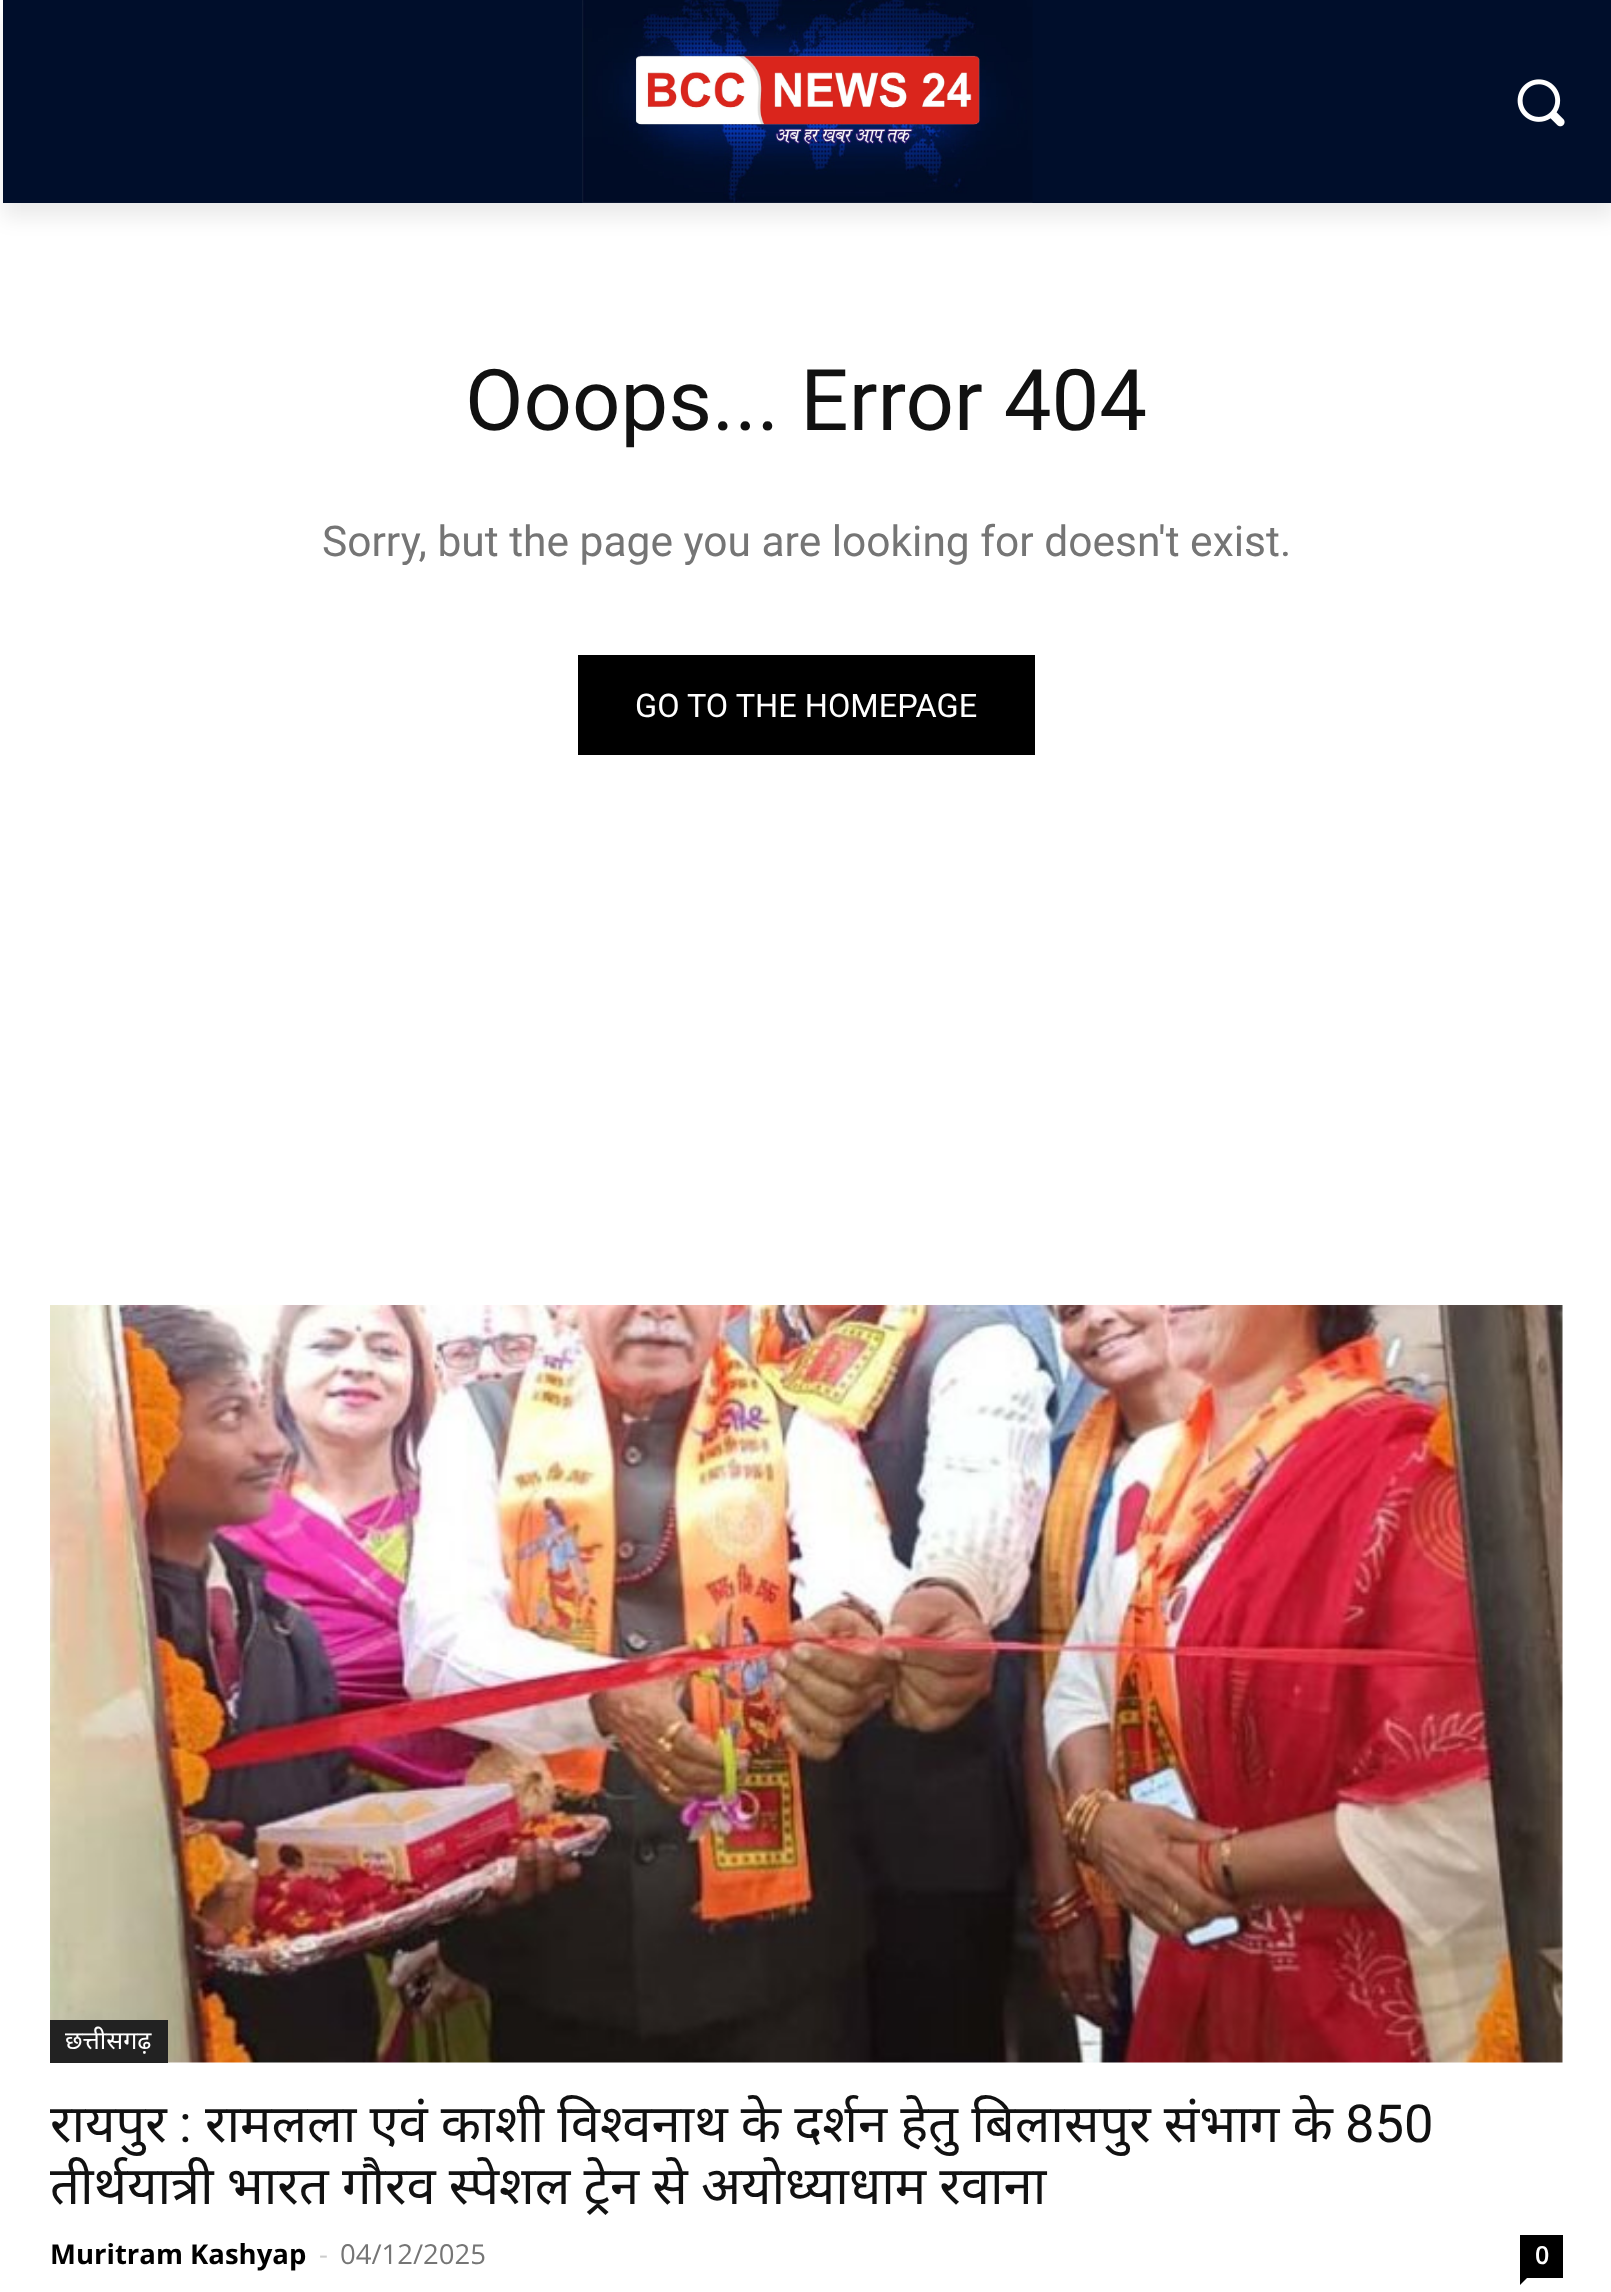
<svg xmlns="http://www.w3.org/2000/svg" width="1611" height="2292" viewBox="0 0 1611 2292">
  <defs>
    <clipPath id="clip1"><path d="M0 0H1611V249H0ZM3 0H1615V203H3Z" clip-rule="evenodd"/></clipPath>
    <filter id="blur1" x="-50%" y="-200%" width="200%" height="500%"><feGaussianBlur stdDeviation="10"/></filter>
  </defs>
  <rect width="100%" height="100%" fill="#ffffff"/>
  <rect x="3" y="0" width="1608" height="203" fill="#000e2b"/>
  <image x="582" y="0" width="451" height="203" href="img1.png"/>
  <image x="1517" y="79" width="48" height="48" href="img2.png"/>
  <g clip-path="url(#clip1)">
    <rect x="3" y="15" width="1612" height="203" fill="#000000" fill-opacity="0.08" filter="url(#blur1)"/>
  </g>
  <text x="465" y="430" font-family="Roboto" font-size="85" fill="#111111">Ooops... Error 404</text>
  <text x="322" y="556" font-family="Roboto" font-size="42.5" fill="#757575">Sorry, but the page you are looking for doesn't exist.</text>
  <rect x="578" y="655" width="457" height="100" fill="#000000"/>
  <text x="635" y="717" font-family="Roboto" font-size="32.5" fill="#ffffff">GO TO THE HOMEPAGE</text>
  <image x="50" y="1305" width="1513" height="758" href="img3.png"/>
  <rect x="50" y="2020" width="118" height="43" fill="#222222"/>
  <text x="65" y="2049" font-family="Noto Sans" font-size="25" fill="#ffffff">छत्तीसगढ़</text>
  <text x="50" y="2142" font-family="Noto Sans" font-size="52.5" fill="#111111">रायपुर</text>
  <text x="179" y="2142" font-family="Roboto" font-size="52.5" fill="#111111">:</text>
  <text x="205" y="2142" word-spacing="-0.5" font-family="Noto Sans" font-size="52.5" fill="#111111">रामलला एवं काशी विश्वनाथ के दर्शन हेतु बिलासपुर संभाग के</text>
  <text x="1345" y="2142" font-family="Roboto" font-size="52.5" fill="#111111">850</text>
  <text x="50" y="2204" word-spacing="-0.5" font-family="Noto Sans" font-size="52.5" fill="#111111">तीर्थयात्री भारत गौरव स्पेशल ट्रेन से अयोध्याधाम रवाना</text>
  <text x="50" y="2264" font-family="Open Sans" font-size="27.5" font-weight="bold" fill="#000000">Muritram Kashyap</text>
  <text x="319" y="2264" font-family="Open Sans" font-size="27.5" fill="#cccccc">-</text>
  <text x="340" y="2264" font-family="Open Sans" font-size="27.5" fill="#757575">04/12/2025</text>
  <rect x="1520" y="2235" width="43" height="43" fill="#000000"/>
  <text x="1535" y="2264" font-family="Open Sans" font-size="25" font-weight="600" fill="#ffffff">0</text>
  <path d="M1520 2277.5H1527.5L1520 2285Z" fill="#000000"/>
</svg>
